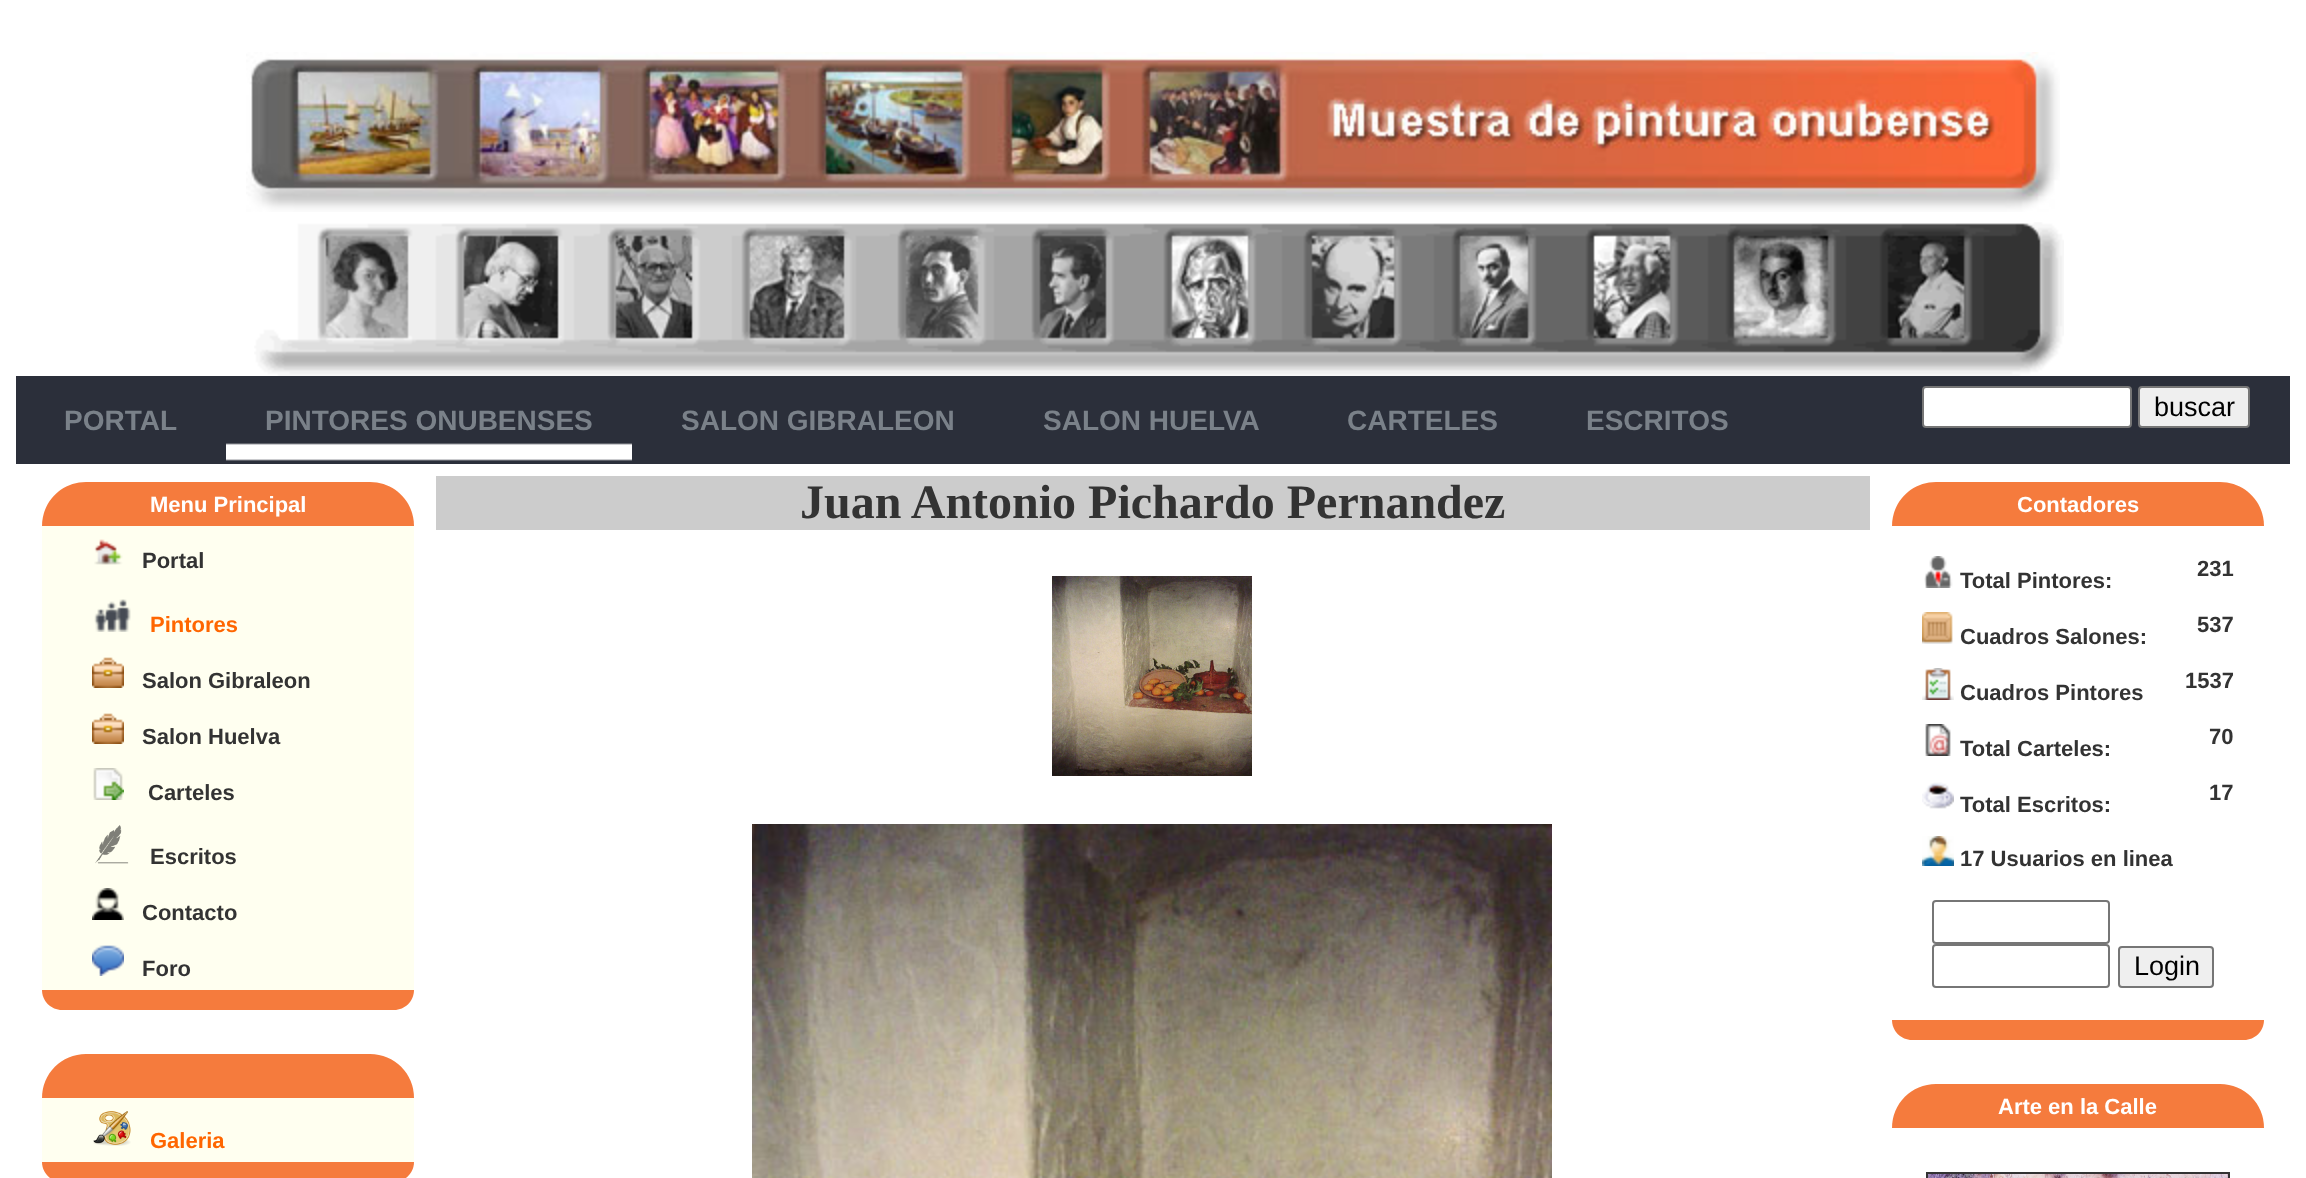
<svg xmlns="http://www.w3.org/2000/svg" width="2306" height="1178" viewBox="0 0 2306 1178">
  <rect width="100%" height="100%" fill="#ffffff"/>
  <image x="246" y="52" width="1814" height="160" href="img1.png"/>
  <image x="254" y="222" width="1810" height="154" href="img2.png"/>
  <rect x="16" y="376" width="2274" height="88" fill="#2b2f3a"/>
  <rect x="1923" y="387" width="208" height="40" rx="3" fill="#ffffff" stroke="#767676" stroke-width="2"/>
  <rect x="2139" y="387" width="110" height="40" rx="3" fill="#efefef" stroke="#767676" stroke-width="2"/>
  <text x="2154" y="416" font-family="Liberation Sans" font-size="27" fill="#000000">buscar</text>
  <text x="64" y="430" font-family="Liberation Sans" font-size="28" font-weight="bold" fill="#7a8189">PORTAL</text>
  <image x="226" y="443" width="406" height="18" href="img3.png"/>
  <text x="265" y="430" font-family="Liberation Sans" font-size="28" font-weight="bold" fill="#7a8189">PINTORES ONUBENSES</text>
  <text x="681" y="430" font-family="Liberation Sans" font-size="28" font-weight="bold" fill="#7a8189">SALON GIBRALEON</text>
  <text x="1043" y="430" font-family="Liberation Sans" font-size="28" font-weight="bold" fill="#7a8189">SALON HUELVA</text>
  <text x="1347" y="430" font-family="Liberation Sans" font-size="28" font-weight="bold" fill="#7a8189">CARTELES</text>
  <text x="1586" y="430" font-family="Liberation Sans" font-size="28" font-weight="bold" fill="#7a8189">ESCRITOS</text>
  <path d="M86 482H370C394.5 482 414 501.5 414 526H42C42 501.5 61.5 482 86 482Z" fill="#f57b3d"/>
  <text x="150" y="512" font-family="Liberation Sans" font-size="22" font-weight="bold" fill="#ffffff">Menu Principal</text>
  <rect x="42" y="526" width="372" height="464" fill="#fffff0"/>
  <image x="94" y="539" width="29" height="26" href="img4.png"/>
  <text x="142" y="568" font-family="Liberation Sans" font-size="22" font-weight="bold" fill="#333333">Portal</text>
  <image x="94" y="599" width="37" height="33" href="img5.png"/>
  <text x="150" y="632" font-family="Liberation Sans" font-size="22" font-weight="bold" fill="#ff6600">Pintores</text>
  <image x="92" y="657" width="32" height="31" href="img6.png"/>
  <text x="142" y="688" font-family="Liberation Sans" font-size="22" font-weight="bold" fill="#333333">Salon Gibraleon</text>
  <image x="92" y="713" width="32" height="31" href="img6.png"/>
  <text x="142" y="744" font-family="Liberation Sans" font-size="22" font-weight="bold" fill="#333333">Salon Huelva</text>
  <image x="93" y="768" width="31" height="32" href="img7.png"/>
  <text x="148" y="800" font-family="Liberation Sans" font-size="22" font-weight="bold" fill="#333333">Carteles</text>
  <image x="95" y="825" width="34" height="39" href="img8.png"/>
  <text x="150" y="864" font-family="Liberation Sans" font-size="22" font-weight="bold" fill="#333333">Escritos</text>
  <image x="92" y="888" width="32" height="32" href="img9.png"/>
  <text x="142" y="920" font-family="Liberation Sans" font-size="22" font-weight="bold" fill="#333333">Contacto</text>
  <image x="92" y="945" width="32" height="31" href="img10.png"/>
  <text x="142" y="976" font-family="Liberation Sans" font-size="22" font-weight="bold" fill="#333333">Foro</text>
  <path d="M42 990H414C414 1001 405 1010 394 1010H62C51 1010 42 1001 42 990Z" fill="#f57b3d"/>
  <path d="M86 1054H370C394.5 1054 414 1073.5 414 1098H42C42 1073.5 61.5 1054 86 1054Z" fill="#f57b3d"/>
  <rect x="42" y="1098" width="372" height="64" fill="#fffff0"/>
  <image x="93" y="1111" width="38" height="35" href="img11.png"/>
  <text x="150" y="1148" font-family="Liberation Sans" font-size="22" font-weight="bold" fill="#ff6600">Galeria</text>
  <path d="M42 1162H414C414 1173 405 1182 394 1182H62C51 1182 42 1173 42 1162Z" fill="#f57b3d"/>
  <rect x="436" y="476" width="1434" height="54" fill="#cccccc"/>
  <text x="800" y="518" font-family="Liberation Serif" font-size="48" font-weight="bold" fill="#333333">Juan Antonio Pichardo Pernandez</text>
  <image x="1052" y="576" width="200" height="200" href="img12.png"/>
  <image x="752" y="824" width="800" height="354" href="img13.png"/>
  <path d="M1936 482H2220C2244.5 482 2264 501.5 2264 526H1892C1892 501.5 1911.5 482 1936 482Z" fill="#f57b3d"/>
  <text x="2017" y="512" font-family="Liberation Sans" font-size="22" font-weight="bold" fill="#ffffff">Contadores</text>
  <image x="1924" y="556" width="29" height="32" href="img14.png"/>
  <text x="2197" y="576" font-family="Liberation Sans" font-size="22" font-weight="bold" fill="#333333">231</text>
  <text x="1960" y="588" font-family="Liberation Sans" font-size="22" font-weight="bold" fill="#333333">Total Pintores:</text>
  <image x="1922" y="612" width="31" height="32" href="img15.png"/>
  <text x="2197" y="632" font-family="Liberation Sans" font-size="22" font-weight="bold" fill="#333333">537</text>
  <text x="1960" y="644" font-family="Liberation Sans" font-size="22" font-weight="bold" fill="#333333">Cuadros Salones:</text>
  <image x="1922" y="668" width="32" height="32" href="img16.png"/>
  <text x="2185" y="688" font-family="Liberation Sans" font-size="22" font-weight="bold" fill="#333333">1537</text>
  <text x="1960" y="700" font-family="Liberation Sans" font-size="22" font-weight="bold" fill="#333333">Cuadros Pintores</text>
  <image x="1925" y="724" width="26" height="32" href="img17.png"/>
  <text x="2209" y="744" font-family="Liberation Sans" font-size="22" font-weight="bold" fill="#333333">70</text>
  <text x="1960" y="756" font-family="Liberation Sans" font-size="22" font-weight="bold" fill="#333333">Total Carteles:</text>
  <image x="1922" y="782" width="32" height="27" href="img18.png"/>
  <text x="2209" y="800" font-family="Liberation Sans" font-size="22" font-weight="bold" fill="#333333">17</text>
  <text x="1960" y="812" font-family="Liberation Sans" font-size="22" font-weight="bold" fill="#333333">Total Escritos:</text>
  <image x="1922" y="836" width="32" height="30" href="img19.png"/>
  <text x="1960" y="866" font-family="Liberation Sans" font-size="22" font-weight="bold" fill="#333333">17 Usuarios en linea</text>
  <rect x="1933" y="901" width="176" height="42" rx="3" fill="none" stroke="#767676" stroke-width="2"/>
  <rect x="1933" y="945" width="176" height="42" rx="3" fill="none" stroke="#767676" stroke-width="2"/>
  <rect x="2119" y="947" width="94" height="40" rx="3" fill="#efefef" stroke="#767676" stroke-width="2"/>
  <text x="2134" y="975" font-family="Liberation Sans" font-size="27" fill="#000000">Login</text>
  <path d="M1892 1020H2264C2264 1031 2255 1040 2244 1040H1912C1901 1040 1892 1031 1892 1020Z" fill="#f57b3d"/>
  <path d="M1936 1084H2220C2244.5 1084 2264 1103.5 2264 1128H1892C1892 1103.5 1911.5 1084 1936 1084Z" fill="#f57b3d"/>
  <text x="1998" y="1114" font-family="Liberation Sans" font-size="22" font-weight="bold" fill="#ffffff">Arte en la Calle</text>
  <rect x="1927" y="1173" width="302" height="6" fill="none" stroke="#333333" stroke-width="2"/>
  <image x="1928" y="1174" width="300" height="4" href="img20.png"/>
</svg>
